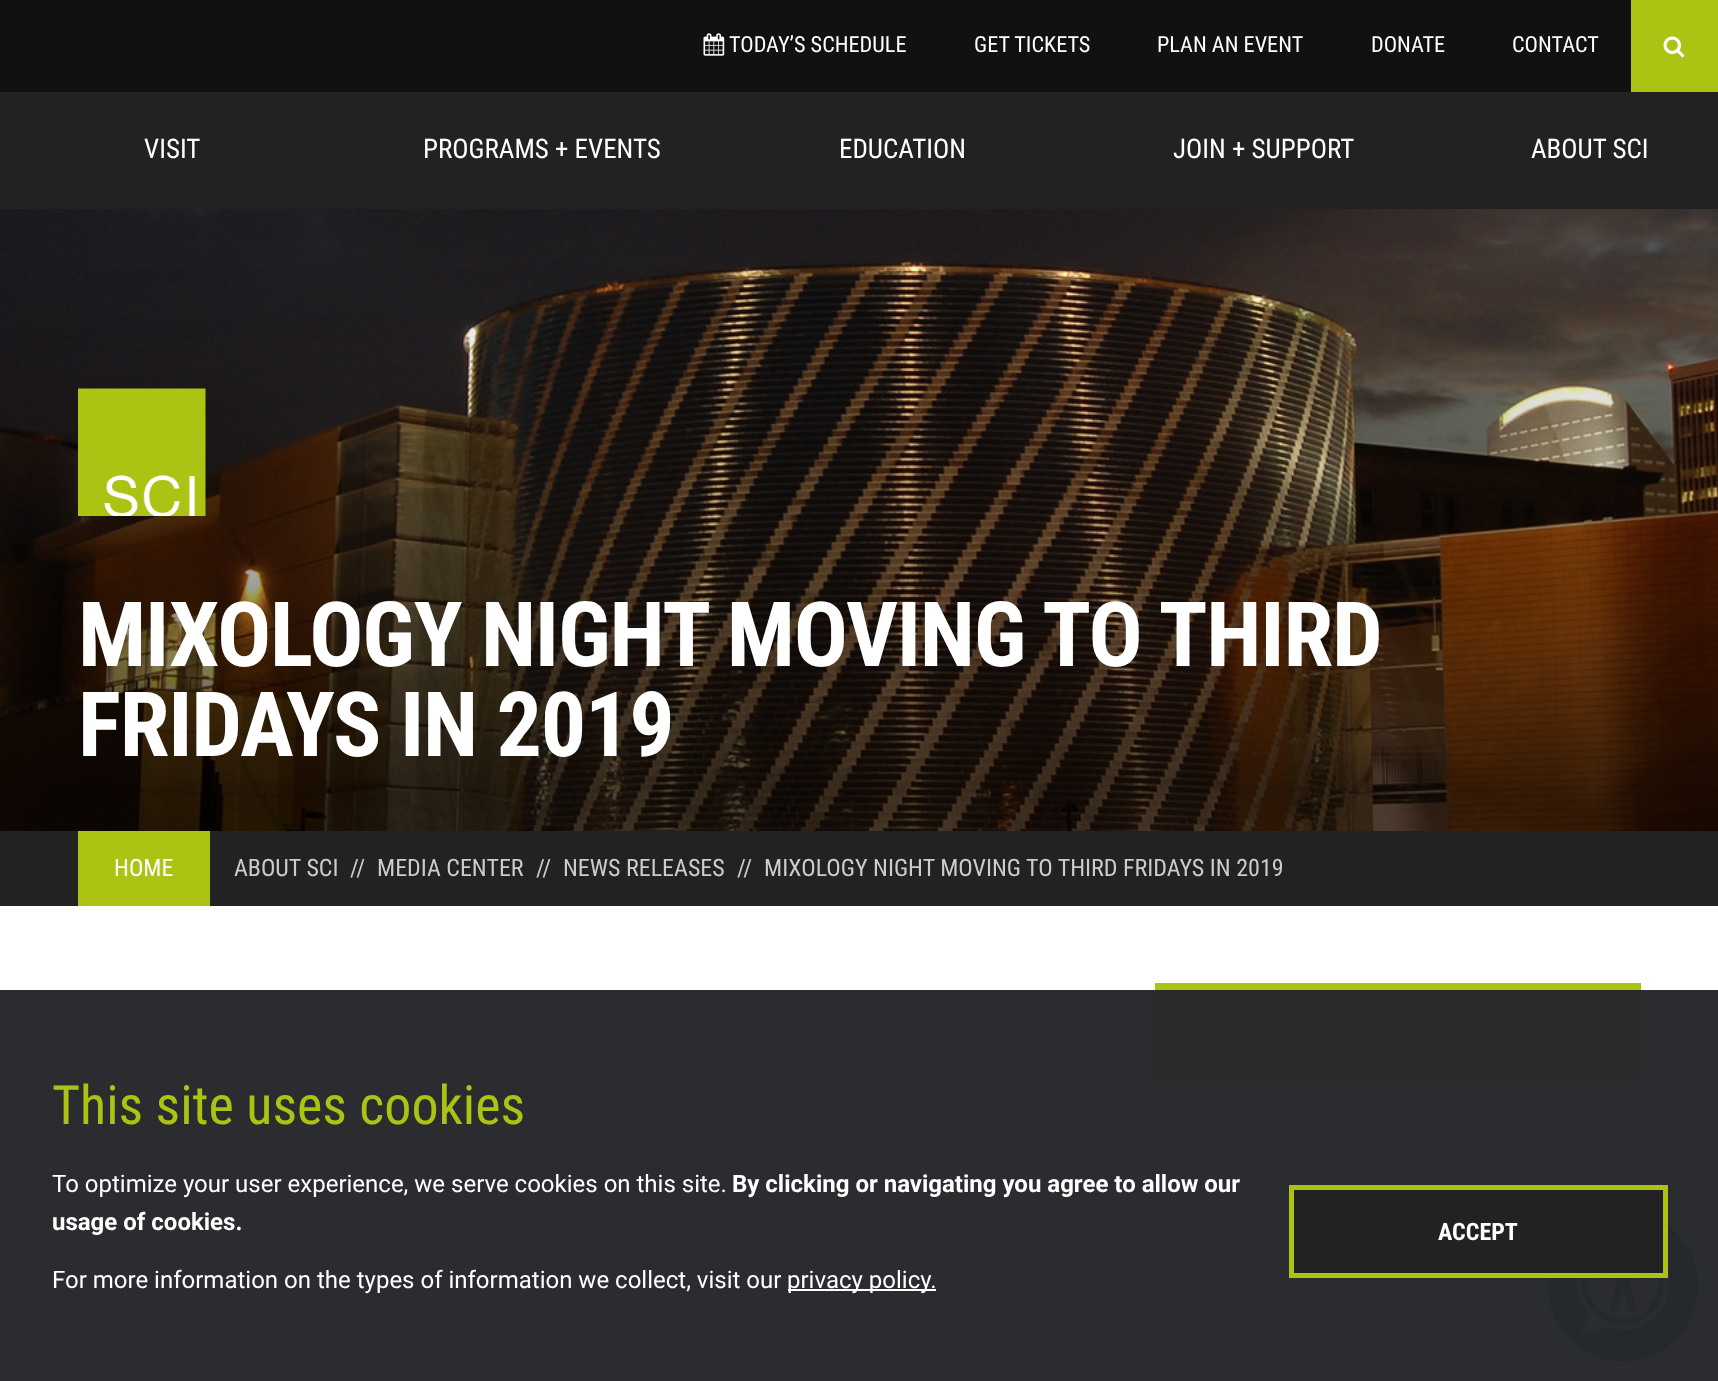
<svg xmlns="http://www.w3.org/2000/svg" width="1718" height="1381" viewBox="0 0 1718 1381">
  <rect width="100%" height="100%" fill="#ffffff"/>
  <rect x="0" y="0" width="1631" height="92" fill="#111111"/>
  <image x="703" y="33" width="22" height="23" href="img1.png"/>
  <text x="729" y="52" font-family="Roboto Condensed" font-size="22.25" fill="#ffffff">TODAY’S SCHEDULE</text>
  <text x="974" y="52" font-family="Roboto Condensed" font-size="22.25" fill="#ffffff">GET TICKETS</text>
  <text x="1157" y="52" font-family="Roboto Condensed" font-size="22.25" fill="#ffffff">PLAN AN EVENT</text>
  <text x="1371" y="52" font-family="Roboto Condensed" font-size="22.25" fill="#ffffff">DONATE</text>
  <text x="1512" y="52" font-family="Roboto Condensed" font-size="22.25" fill="#ffffff">CONTACT</text>
  <rect x="1631" y="0" width="87" height="92" fill="#acc314"/>
  <image x="1663" y="36" width="22" height="22" href="img2.png"/>
  <rect x="0" y="92" width="1718" height="117" fill="#222222"/>
  <text x="144" y="158" font-family="Roboto Condensed" font-size="27" fill="#ffffff">VISIT</text>
  <text x="423" y="158" font-family="Roboto Condensed" font-size="27" fill="#ffffff">PROGRAMS + EVENTS</text>
  <text x="839" y="158" font-family="Roboto Condensed" font-size="27" fill="#ffffff">EDUCATION</text>
  <text x="1173" y="158" font-family="Roboto Condensed" font-size="27" fill="#ffffff">JOIN + SUPPORT</text>
  <text x="1531" y="158" font-family="Roboto Condensed" font-size="27" fill="#ffffff">ABOUT SCI</text>
  <rect x="0" y="990" width="1718" height="391" fill="#2a2c2f"/>
  <image x="0" y="209" width="1718" height="622" href="img3.png"/>
  <image x="78" y="388" width="128" height="128" href="img4.png"/>
  <text x="78" y="666" font-family="Roboto Condensed" font-size="90" font-weight="bold" letter-spacing="-1.2" fill="#ffffff">MIXOLOGY NIGHT MOVING TO THIRD</text>
  <text x="78" y="756" font-family="Roboto Condensed" font-size="90" font-weight="bold" letter-spacing="-1.2" fill="#ffffff">FRIDAYS IN 2019</text>
  <rect x="0" y="831" width="1718" height="75" fill="#222222"/>
  <rect x="78" y="831" width="132" height="75" fill="#acc314"/>
  <text x="114" y="876" font-family="Roboto Condensed" font-size="24" fill="#ffffff">HOME</text>
  <text x="234" y="876" font-family="Roboto Condensed" font-size="24" fill="#cccccc">ABOUT SCI</text>
  <text x="350" y="876" font-family="Roboto Condensed" font-size="24" fill="#cccccc">//</text>
  <text x="377" y="876" font-family="Roboto Condensed" font-size="24" fill="#cccccc">MEDIA CENTER</text>
  <text x="536" y="876" font-family="Roboto Condensed" font-size="24" fill="#cccccc">//</text>
  <text x="563" y="876" font-family="Roboto Condensed" font-size="24" fill="#cccccc">NEWS RELEASES</text>
  <text x="737" y="876" font-family="Roboto Condensed" font-size="24" fill="#cccccc">//</text>
  <text x="764" y="876" font-family="Roboto Condensed" font-size="24" fill="#cccccc">MIXOLOGY NIGHT MOVING TO THIRD FRIDAYS IN 2019</text>
  <rect x="1155" y="983" width="486" height="7" fill="#acc313"/>
  <rect x="1155" y="990" width="486" height="92" fill="#292b2b"/>
  <text x="52" y="1124" font-family="Roboto Condensed" font-size="54" fill="#acc313">This site uses cookies</text>
  <text x="52" y="1192" font-family="Roboto" font-size="24" fill="#ffffff">To optimize your user experience, we serve cookies on this site.</text>
  <text x="732" y="1192" font-family="Roboto" font-size="24" font-weight="bold" fill="#ffffff">By clicking or navigating you agree to allow our</text>
  <text x="52" y="1230" font-family="Roboto" font-size="24" font-weight="bold" fill="#ffffff">usage of cookies.</text>
  <text x="52" y="1288" font-family="Roboto" font-size="24" fill="#ffffff">For more information on the types of information we collect, visit our</text>
  <rect x="788" y="1289" width="148" height="2" fill="#ffffff"/>
  <text x="787" y="1288" font-family="Roboto" font-size="24" fill="#ffffff">privacy policy.</text>
  <circle cx="1623" cy="1286" r="75" fill="#25282c"/>
  <image x="1575" y="1267" width="96" height="69" href="img5.png"/>
  <rect x="1291.5" y="1187.5" width="374" height="88" fill="#222222" stroke="#acc314" stroke-width="5"/>
  <text x="1438" y="1240" font-family="Roboto Condensed" font-size="24" font-weight="bold" fill="#ffffff">ACCEPT</text>
</svg>
